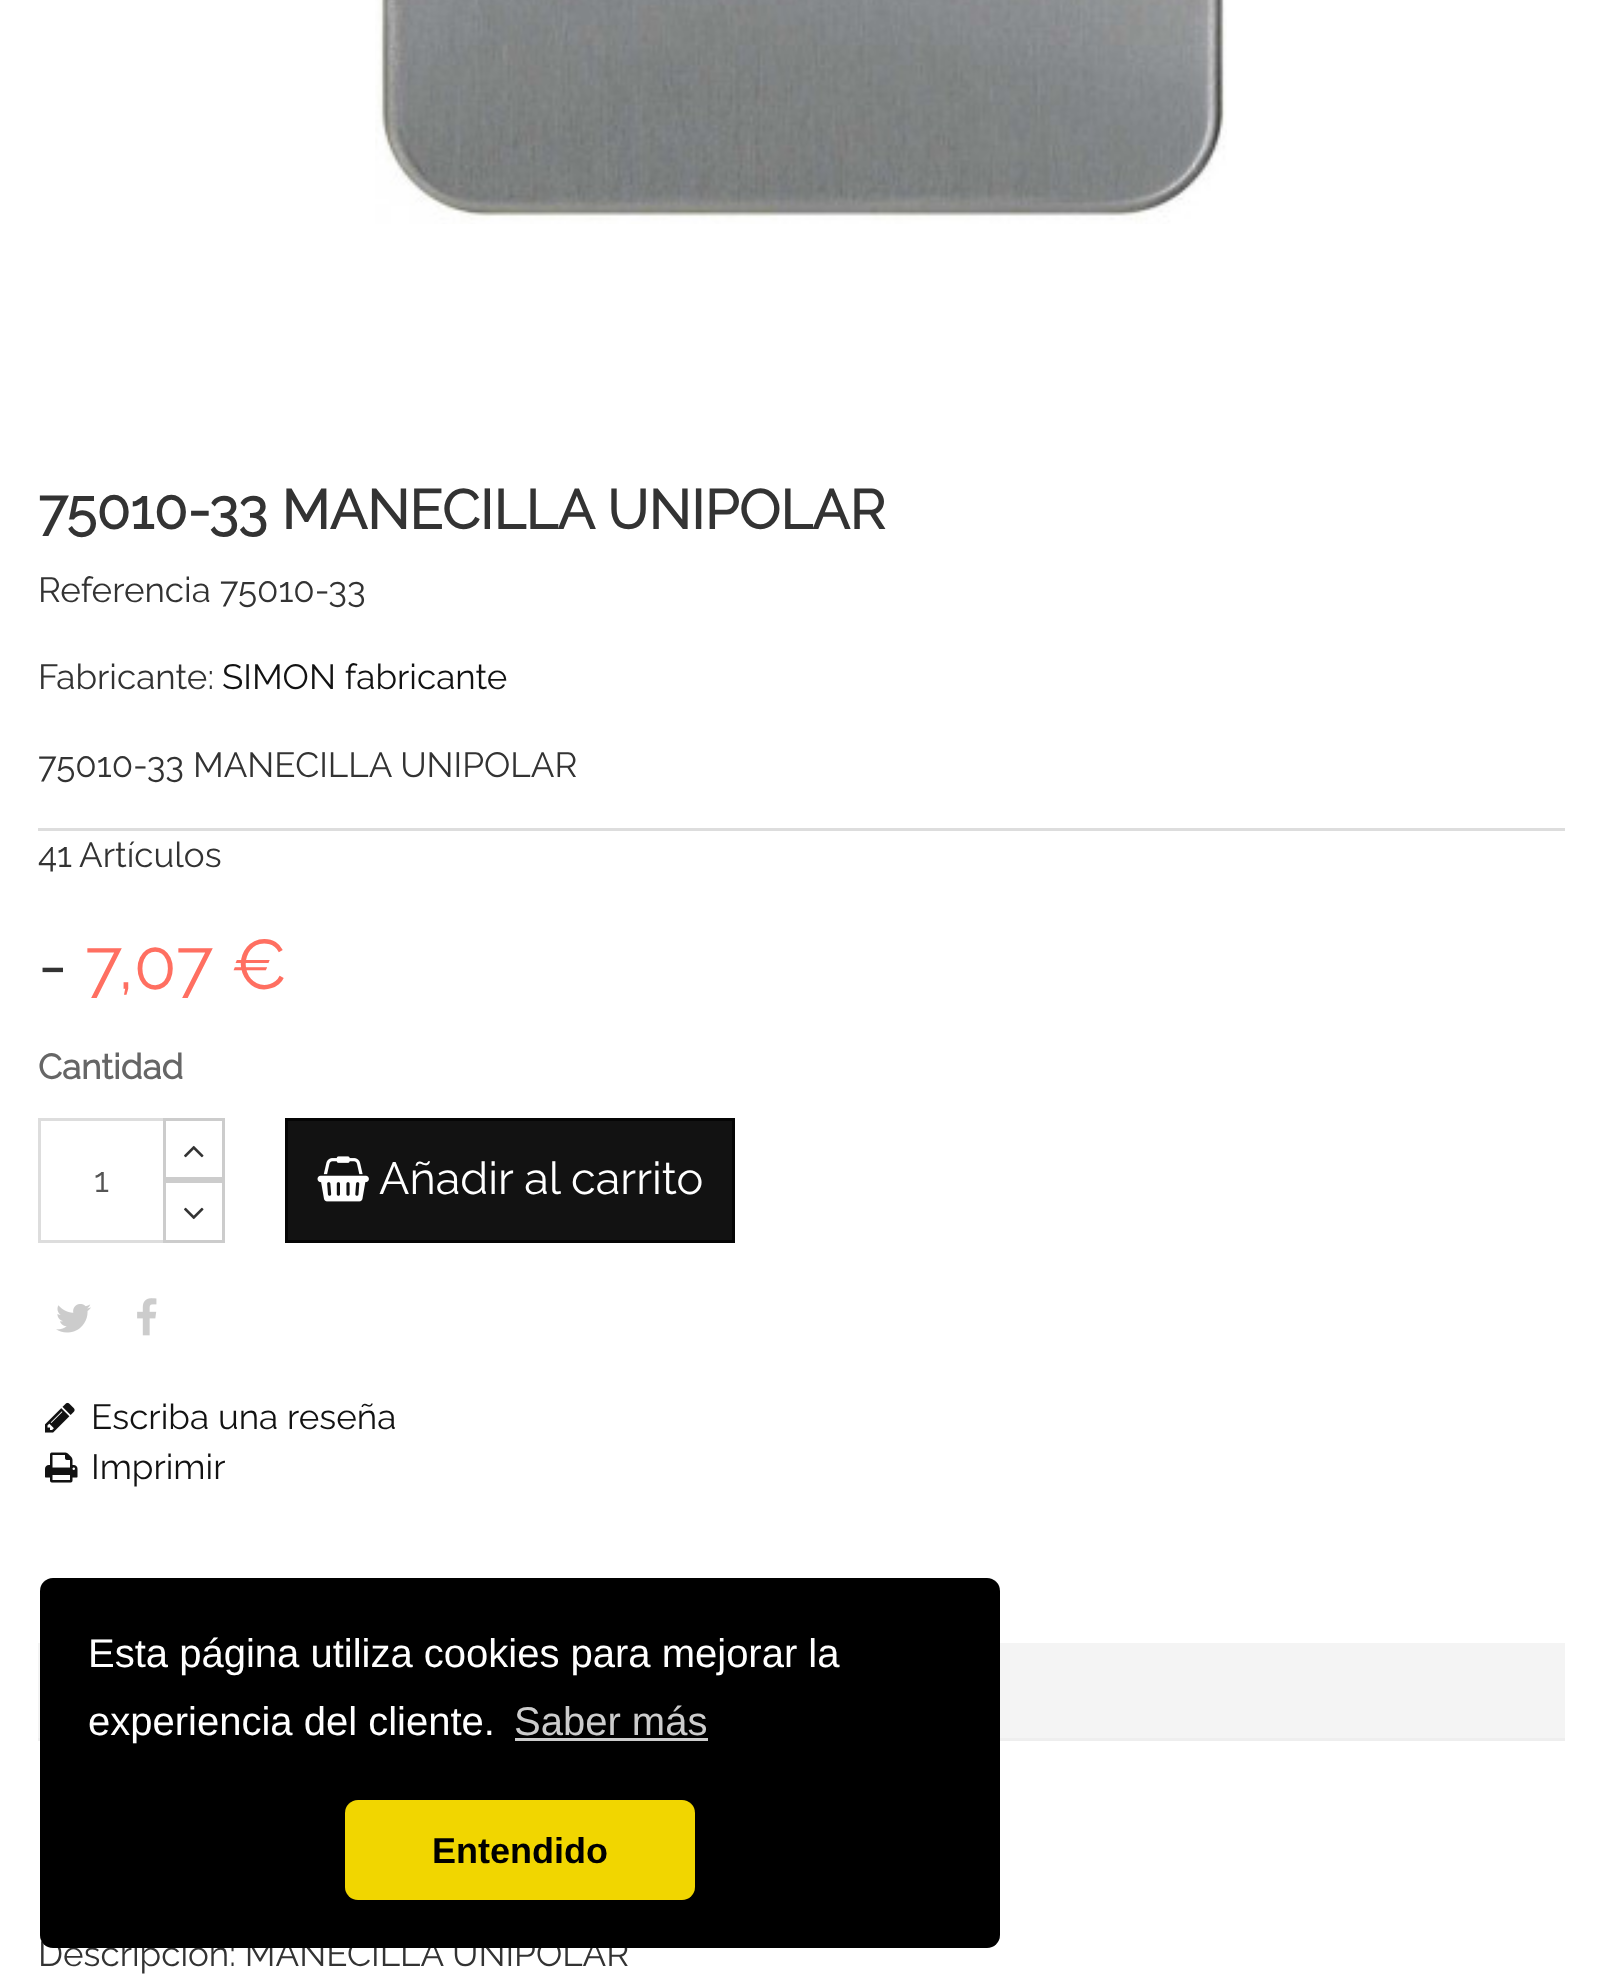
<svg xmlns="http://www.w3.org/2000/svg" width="1601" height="1987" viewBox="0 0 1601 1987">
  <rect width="100%" height="100%" fill="#ffffff"/>
  <image x="375" y="0" width="852" height="224" href="img1.png"/>
  <text x="38" y="529" font-family="Raleway" font-size="55" font-weight="bold" fill="#333333">75010-33 MANECILLA UNIPOLAR</text>
  <text x="38" y="602" font-family="Raleway" font-size="35" font-weight="100" fill="#333333">Referencia 75010-33</text>
  <text x="38" y="689" font-family="Raleway" font-size="35" font-weight="100" fill="#333333">Fabricante:</text>
  <text x="222" y="689" font-family="Raleway" font-size="35" font-weight="100" fill="#121212">SIMON fabricante</text>
  <rect x="38" y="828" width="1527" height="3" fill="#dddddd"/>
  <text x="38" y="777" font-family="Raleway" font-size="35" font-weight="100" fill="#333333">75010-33 MANECILLA UNIPOLAR</text>
  <text x="38" y="867" font-family="Raleway" font-size="35" font-weight="100" fill="#333333">41</text>
  <text x="79" y="867" font-family="Raleway" font-size="35" font-weight="100" fill="#333333">Artículos</text>
  <text x="38" y="989" font-family="Raleway" font-size="70" font-weight="100" fill="#333333">-</text>
  <text x="85" y="989" font-family="Raleway" font-size="70" font-weight="100" fill="#ff6f61">7,07 €</text>
  <text x="38" y="1079" font-family="Raleway" font-size="35" font-weight="bold" fill="#666666">Cantidad</text>
  <rect x="164.5" y="1119.5" width="59" height="59" fill="none" stroke="#cccccc" stroke-width="3"/>
  <image x="184" y="1145" width="20" height="13" href="img2.png"/>
  <rect x="38" y="1118" width="125" height="3" fill="#dddddd"/>
  <rect x="38" y="1240" width="125" height="3" fill="#dddddd"/>
  <rect x="38" y="1118" width="3" height="125" fill="#dddddd"/>
  <text x="94" y="1192" font-family="Raleway" font-size="35" font-weight="100" fill="#555555">1</text>
  <rect x="164.5" y="1181.5" width="59" height="60" fill="none" stroke="#cccccc" stroke-width="3"/>
  <image x="184" y="1207" width="20" height="13" href="img3.png"/>
  <rect x="286.5" y="1119.5" width="447" height="122" fill="#121212" stroke="#050505" stroke-width="3"/>
  <image x="317" y="1156" width="52" height="46" href="img4.png"/>
  <text x="379" y="1194" font-family="Raleway" font-size="45" font-weight="100" fill="#ffffff">Añadir al carrito</text>
  <image x="56" y="1304" width="35" height="29" href="img5.png"/>
  <image x="137" y="1298" width="20" height="38" href="img6.png"/>
  <image x="45" y="1402" width="30" height="31" href="img7.png"/>
  <text x="91" y="1429" font-family="Raleway" font-size="35" font-weight="100" fill="#121212">Escriba una reseña</text>
  <image x="45" y="1452" width="33" height="31" href="img8.png"/>
  <text x="91" y="1479" font-family="Raleway" font-size="35" font-weight="100" fill="#121212">Imprimir</text>
  <rect x="38" y="1643" width="1527" height="95" fill="#f4f4f4"/>
  <rect x="38" y="1738" width="1527" height="3" fill="#eeeeee"/>
  <text x="38" y="1966" font-family="Raleway" font-size="35" font-weight="100" fill="#333333">Descripción: MANECILLA UNIPOLAR</text>
  <rect x="40" y="1578" width="960" height="370" rx="13" fill="#000000"/>
  <text x="88" y="1667" font-family="Liberation Sans" font-size="40" fill="#ffffff">Esta página utiliza cookies para mejorar la</text>
  <text x="88" y="1735" font-family="Liberation Sans" font-size="40" fill="#ffffff">experiencia del cliente.</text>
  <text x="514" y="1735" font-family="Liberation Sans" font-size="40" fill="#cccccc">Saber más</text>
  <rect x="515" y="1738" width="193" height="3" fill="#cccccc"/>
  <rect x="345" y="1800" width="350" height="100" rx="13" fill="#f1d600"/>
  <text x="432" y="1863" font-family="Liberation Sans" font-size="36" font-weight="bold" fill="#000000">Entendido</text>
</svg>
